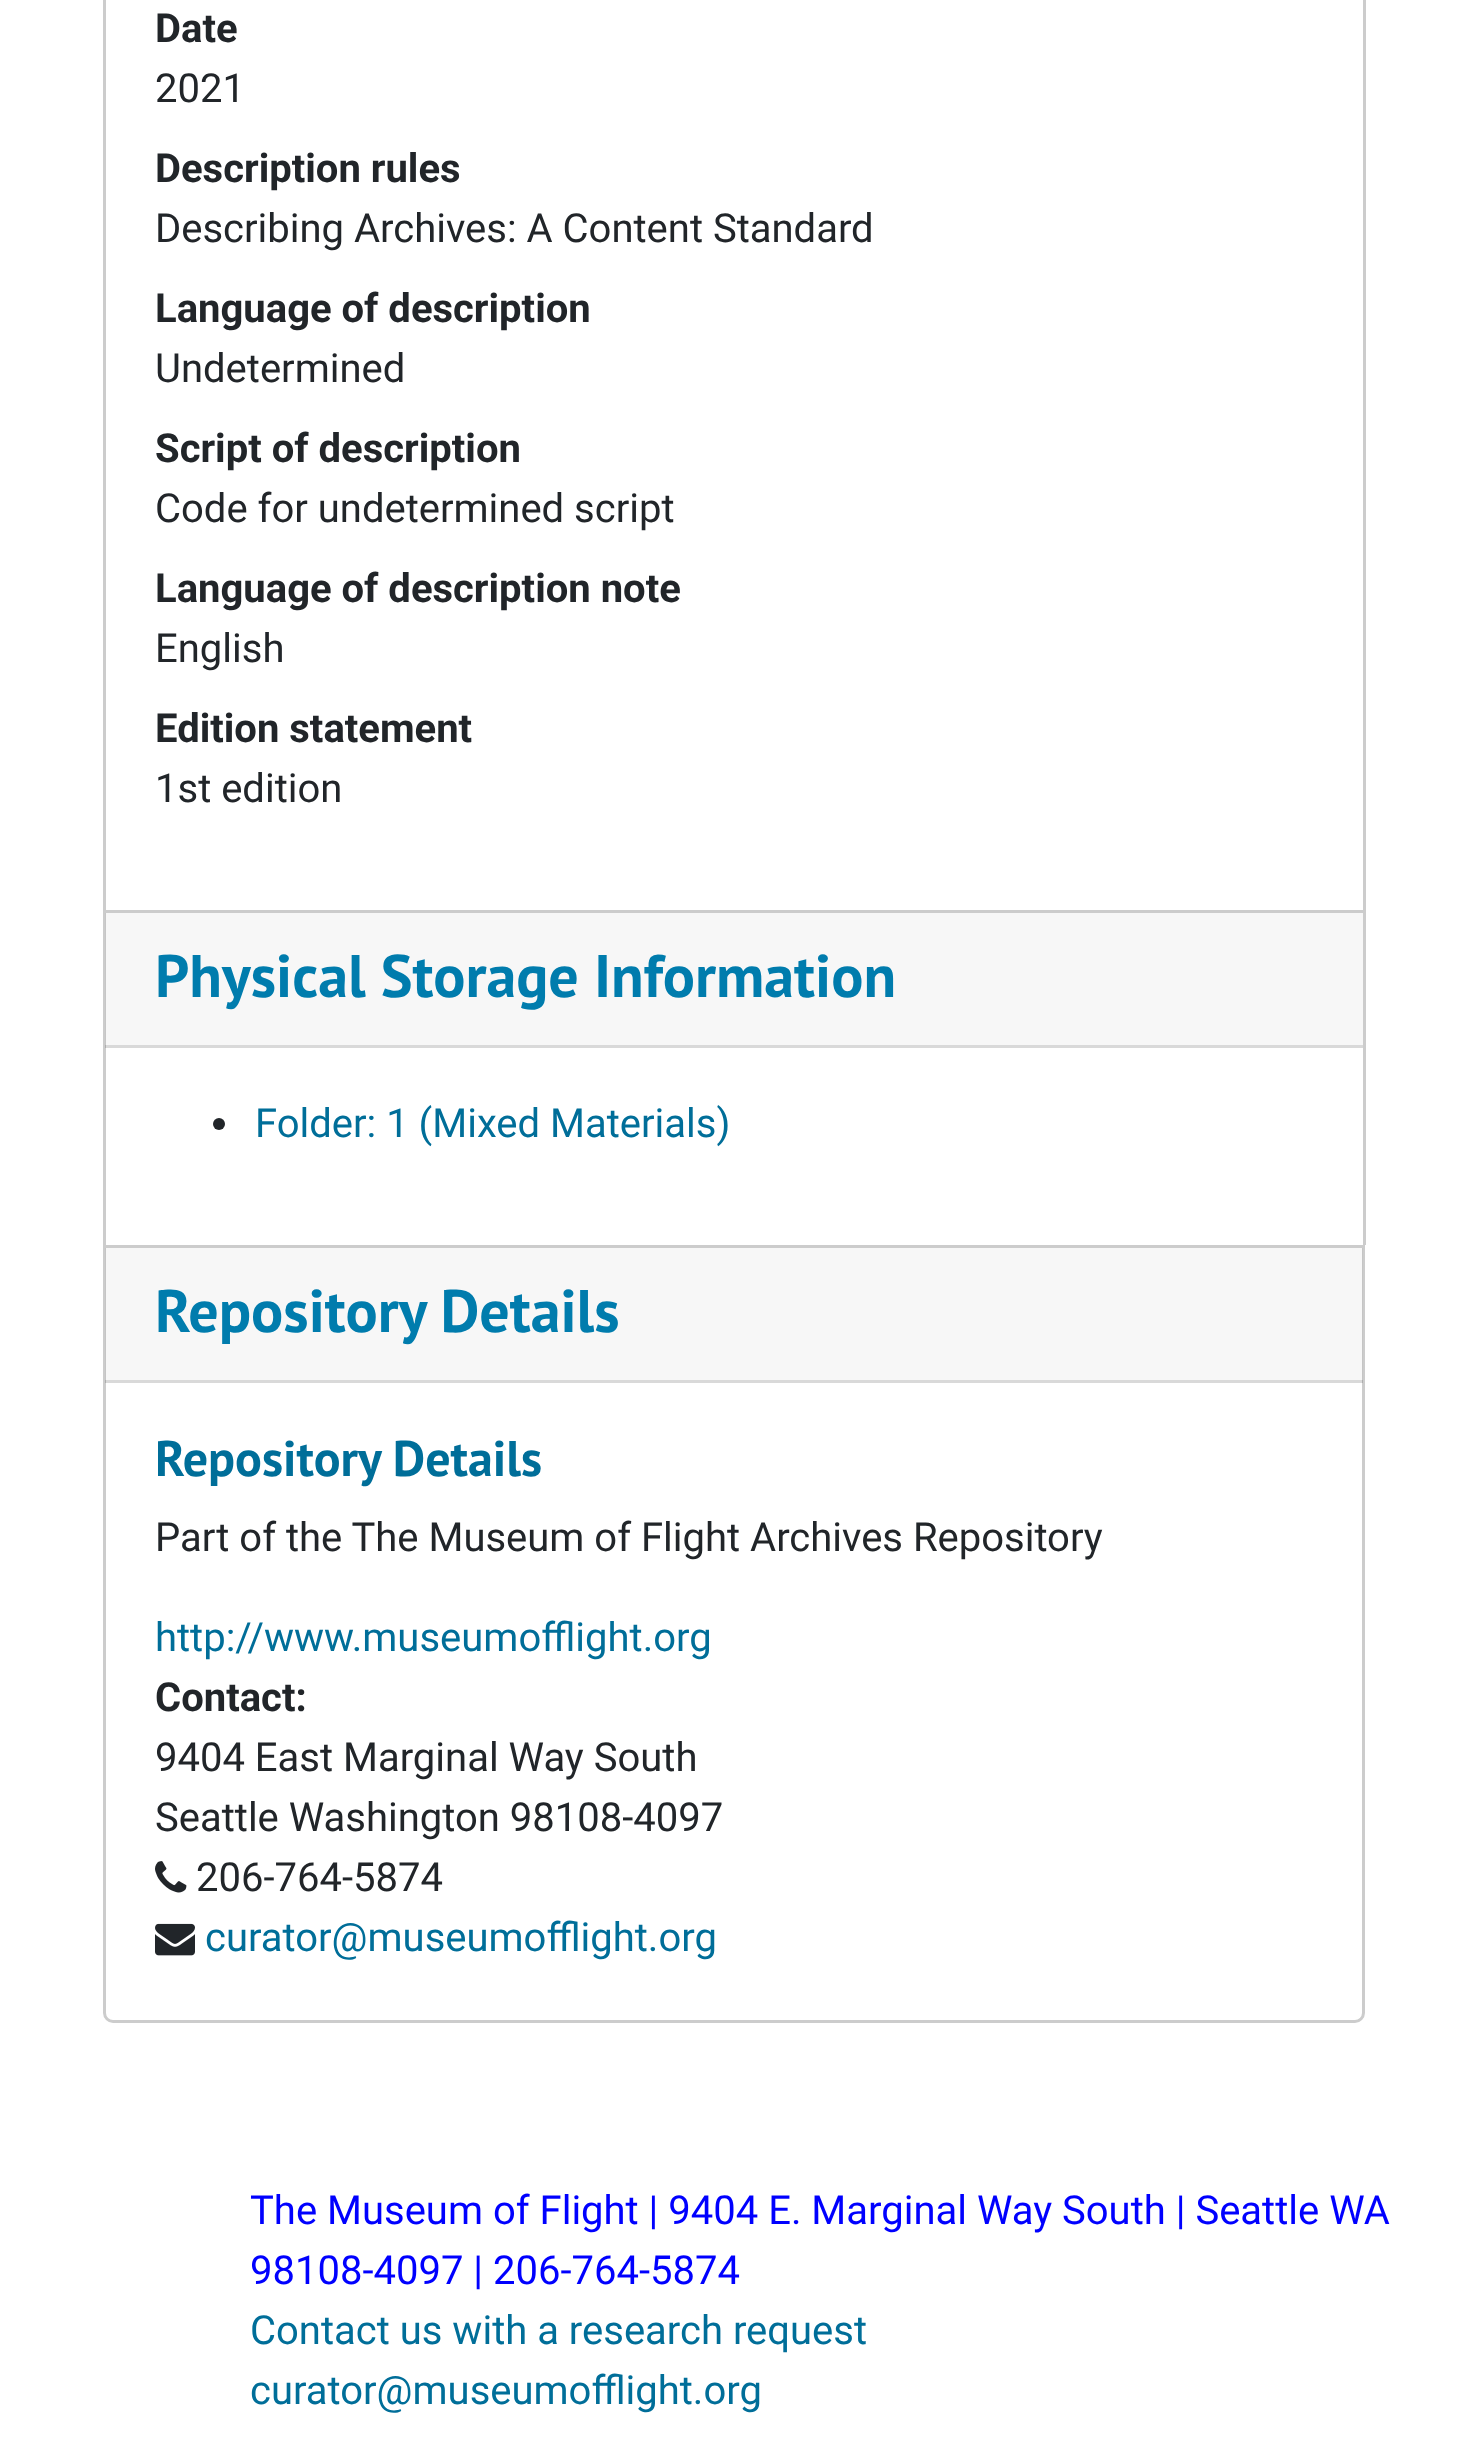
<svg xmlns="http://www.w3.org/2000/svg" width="1467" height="2462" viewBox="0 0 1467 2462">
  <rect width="100%" height="100%" fill="#ffffff"/>
  <rect x="106" y="913" width="1257" height="132" fill="#f7f7f7"/>
  <rect x="105" y="1045" width="1258" height="3" fill="#d9d9d9"/>
  <rect x="1363" y="0" width="3" height="910" fill="#cccccc"/>
  <rect x="103" y="0" width="3" height="910" fill="#cccccc"/>
  <text x="155" y="42" font-family="Roboto" font-size="40" font-weight="bold" fill="#212529">Date</text>
  <text x="155" y="102" font-family="Roboto" font-size="40" fill="#212529">2021</text>
  <text x="155" y="182" font-family="Roboto" font-size="40" font-weight="bold" fill="#212529">Description rules</text>
  <text x="155" y="242" font-family="Roboto" font-size="40" fill="#212529">Describing Archives: A Content Standard</text>
  <text x="155" y="322" font-family="Roboto" font-size="40" font-weight="bold" fill="#212529">Language of description</text>
  <text x="155" y="382" font-family="Roboto" font-size="40" fill="#212529">Undetermined</text>
  <text x="155" y="462" font-family="Roboto" font-size="40" font-weight="bold" fill="#212529">Script of description</text>
  <text x="155" y="522" font-family="Roboto" font-size="40" fill="#212529">Code for undetermined script</text>
  <text x="155" y="602" font-family="Roboto" font-size="40" font-weight="bold" fill="#212529">Language of description note</text>
  <text x="155" y="662" font-family="Roboto" font-size="40" fill="#212529">English</text>
  <text x="155" y="742" font-family="Roboto" font-size="40" font-weight="bold" fill="#212529">Edition statement</text>
  <text x="155" y="802" font-family="Roboto" font-size="40" fill="#212529">1st edition</text>
  <rect x="103" y="910" width="1262" height="3" fill="#cccccc"/>
  <rect x="1363" y="910" width="3" height="335" fill="#cccccc"/>
  <rect x="103" y="910" width="3" height="335" fill="#cccccc"/>
  <rect x="105" y="913" width="1" height="135" fill="#c6c6c6"/>
  <rect x="105" y="1045" width="1" height="3" fill="#aeaeae"/>
  <text x="155" y="997" font-family="PT Sans" font-size="60" font-weight="bold" fill="#007cad">Physical Storage Information</text>
  <circle cx="219" cy="1124" r="6" fill="#212529"/>
  <text x="255" y="1137" font-family="Roboto" font-size="40" fill="#006e99">Folder: 1 (Mixed Materials)</text>
  <path d="M104.5 1246.5H1363.5V2013C1363.5 2017.5 1359.5 2021.5 1355 2021.5H113C108.5 2021.5 104.5 2017.5 104.5 2013Z" fill="none" stroke="#cccccc" stroke-width="3"/>
  <rect x="105" y="1248" width="1258" height="135" fill="#000000" fill-opacity="0.03"/>
  <rect x="105" y="1380" width="1258" height="3" fill="#000000" fill-opacity="0.12"/>
  <text x="155" y="1332" font-family="PT Sans" font-size="60" font-weight="bold" fill="#007cad">Repository Details</text>
  <text x="155" y="1476" font-family="PT Sans" font-size="50" font-weight="bold" fill="#006e99">Repository Details</text>
  <text x="155" y="1551" font-family="Roboto" font-size="40" fill="#212529">Part of the The Museum of Flight Archives Repository</text>
  <text x="155" y="1651" font-family="Roboto" font-size="40" fill="#006e99">http://www.museumofflight.org</text>
  <text x="155" y="1711" font-family="Roboto" font-size="40" font-weight="bold" fill="#212529">Contact:</text>
  <text x="155" y="1771" font-family="Roboto" font-size="40" fill="#212529">9404 East Marginal Way South</text>
  <text x="155" y="1831" font-family="Roboto" font-size="40" fill="#212529">Seattle Washington 98108-4097</text>
  <image x="155" y="1861" width="32" height="32" href="img1.png"/>
  <text x="196" y="1891" font-family="Roboto" font-size="40" fill="#212529">206-764-5874</text>
  <image x="155" y="1923" width="40" height="33" href="img2.png"/>
  <text x="205" y="1951" font-family="Roboto" font-size="40" fill="#006e99">curator@museumofflight.org</text>
  <text x="250" y="2224" font-family="Roboto" font-size="40" fill="#0000ff">The Museum of Flight | 9404 E. Marginal Way South | Seattle WA</text>
  <text x="250" y="2284" font-family="Roboto" font-size="40" fill="#0000ff">98108-4097 | 206-764-5874</text>
  <text x="250" y="2344" font-family="Roboto" font-size="40" fill="#006e99">Contact us with a research request</text>
  <text x="250" y="2404" font-family="Roboto" font-size="40" fill="#006e99">curator@museumofflight.org</text>
</svg>
